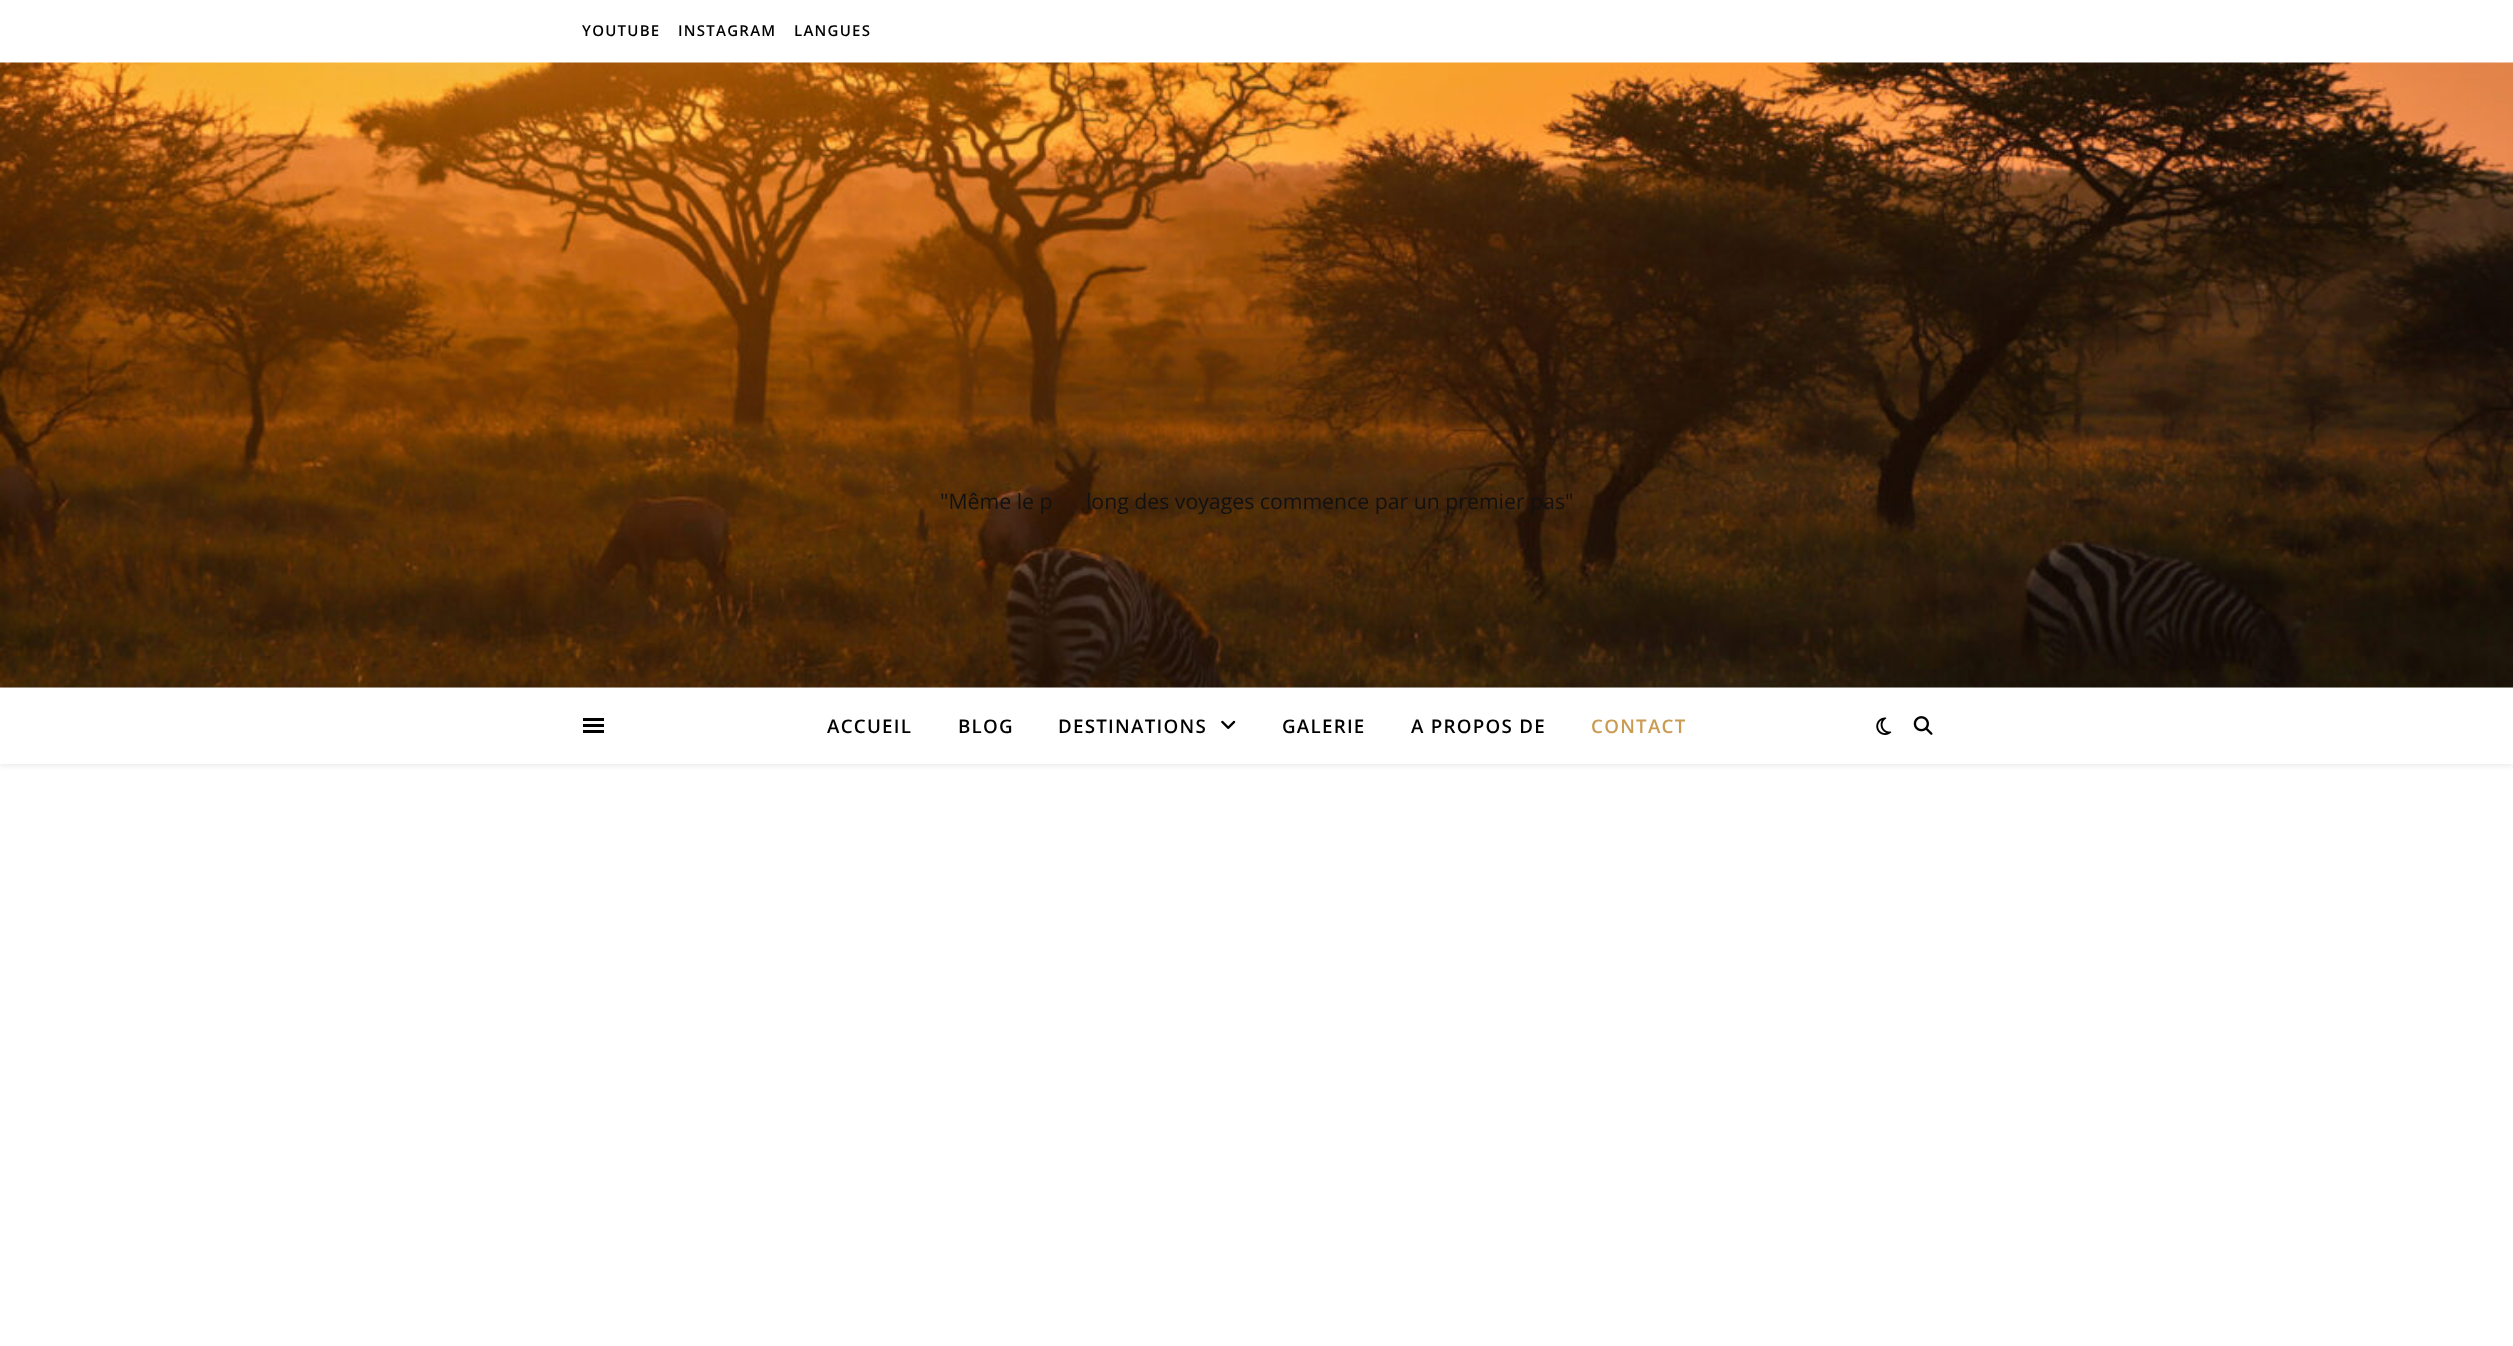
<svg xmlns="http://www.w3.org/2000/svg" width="2513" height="1346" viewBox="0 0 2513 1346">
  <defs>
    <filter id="blur1" x="-50%" y="-200%" width="200%" height="500%"><feGaussianBlur stdDeviation="3"/></filter>
  </defs>
  <rect width="100%" height="100%" fill="#ffffff"/>
  <text x="582" y="36" font-family="Open Sans" font-size="15" font-weight="600" letter-spacing="1.25" fill="#000000">YOUTUBE</text>
  <text x="678" y="36" font-family="Open Sans" font-size="15" font-weight="600" letter-spacing="1.25" fill="#000000">INSTAGRAM</text>
  <text x="794" y="36" font-family="Open Sans" font-size="15" font-weight="600" letter-spacing="1.25" fill="#000000">LANGUES</text>
  <image x="0" y="62" width="2513" height="626" href="img1.png"/>
  <text x="940" y="509" font-family="Open Sans" font-size="21.25" fill="#111111">"Même le p</text>
  <text x="1086" y="509" font-family="Open Sans" font-size="21.25" fill="#111111">long des voyages commence par un premier pas"</text>
  <rect x="0" y="689" width="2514" height="76" fill="#000000" fill-opacity="0.1" filter="url(#blur1)"/>
  <rect x="0" y="688" width="2513" height="76" fill="#ffffff"/>
  <rect x="583" y="718" width="21" height="3" fill="#000000"/>
  <rect x="583" y="724" width="21" height="3" fill="#000000"/>
  <rect x="583" y="730" width="21" height="3" fill="#000000"/>
  <text x="827" y="733" font-family="Open Sans" font-size="18.75" font-weight="600" letter-spacing="1.25" fill="#000000">ACCUEIL</text>
  <text x="958" y="733" font-family="Open Sans" font-size="18.75" font-weight="600" letter-spacing="1.25" fill="#000000">BLOG</text>
  <text x="1058" y="733" font-family="Open Sans" font-size="18.75" font-weight="600" letter-spacing="1.25" fill="#000000">DESTINATIONS</text>
  <image x="1221" y="720" width="15" height="9" href="img2.png"/>
  <text x="1282" y="733" font-family="Open Sans" font-size="18.75" font-weight="600" letter-spacing="1.25" fill="#000000">GALERIE</text>
  <text x="1411" y="733" font-family="Open Sans" font-size="18.75" font-weight="600" letter-spacing="1.25" fill="#000000">A PROPOS DE</text>
  <text x="1591" y="733" font-family="Open Sans" font-size="18.75" font-weight="600" letter-spacing="1.25" fill="#ca9b52">CONTACT</text>
  <image x="1876" y="717" width="16" height="18" href="img3.png"/>
  <image x="1913" y="716" width="20" height="19" href="img4.png"/>
</svg>
